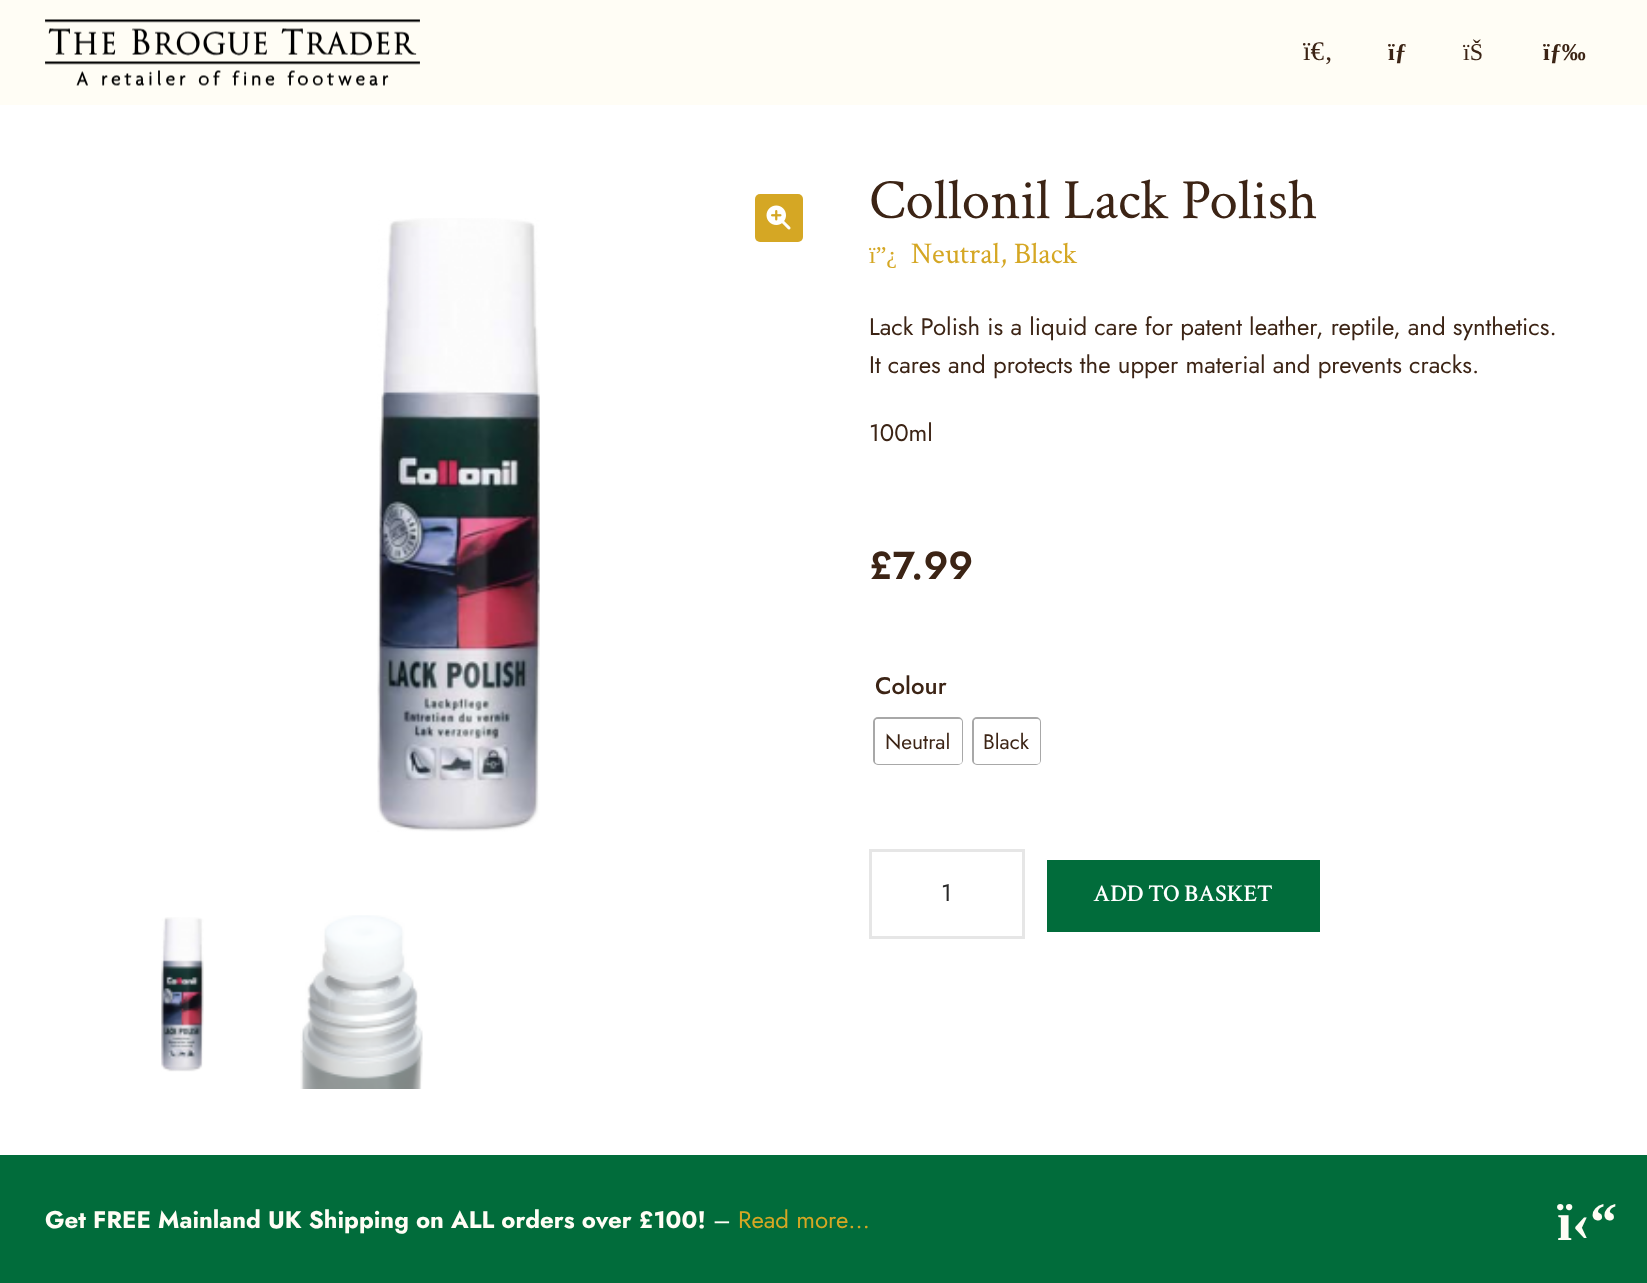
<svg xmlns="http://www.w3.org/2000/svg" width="1647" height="1283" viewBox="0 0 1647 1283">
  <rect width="100%" height="100%" fill="#ffffff"/>
  <rect x="0" y="0" width="1647" height="105" fill="#fffdf5"/>
  <image x="45" y="19" width="375" height="67" href="img1.png"/>
  <text x="1303" y="60" font-family="Liberation Serif" font-size="27" fill="#3c2415">ï€‚</text>
  <text x="1388" y="60" font-family="Liberation Serif" font-size="24" font-weight="bold" fill="#3c2415">ïƒ</text>
  <text x="1463" y="60" font-family="Liberation Serif" font-size="24" fill="#3c2415">ïŠ</text>
  <text x="1543" y="60" font-family="Liberation Serif" font-size="24" font-weight="bold" fill="#3c2415">ïƒ‰</text>
  <image x="377" y="218" width="163" height="614" href="img2.png"/>
  <rect x="755" y="194" width="48" height="48" rx="5" fill="#d5a724"/>
  <image x="766" y="205" width="25" height="25" href="img3.png"/>
  <image x="161" y="917" width="43" height="155" href="img4.png"/>
  <image x="300" y="915" width="123" height="174" href="img5.png"/>
  <text x="869" y="218" font-family="Crimson Text" font-size="57" fill="#3c2415">Collonil Lack Polish</text>
  <text x="869" y="263" font-family="Liberation Serif" font-size="24" fill="#d5a724">ï”¿</text>
  <text x="911" y="263" font-family="Crimson Text" font-size="30" fill="#d5a724">Neutral, Black</text>
  <text x="869" y="335" font-family="Jost" font-size="24" fill="#3c2415">Lack Polish is a liquid care for patent leather, reptile, and synthetics.</text>
  <text x="869" y="373" font-family="Jost" font-size="24" fill="#3c2415">It cares and protects the upper material and prevents cracks.</text>
  <text x="869" y="441" font-family="Jost" font-size="24" fill="#3c2415">100ml</text>
  <text x="869" y="579" font-family="Jost" font-size="39" font-weight="600" fill="#3c2415">£7.99</text>
  <text x="875" y="694" font-family="Jost" font-size="24" font-weight="500" fill="#3c2415">Colour</text>
  <rect x="874" y="718" width="88" height="46" rx="4" fill="none" stroke="#a8a8a8" stroke-width="2"/>
  <rect x="875" y="719" width="87" height="45" rx="3" fill="#ffffff"/>
  <text x="885" y="749" font-family="Jost" font-size="21" fill="#3c2415">Neutral</text>
  <rect x="973" y="718" width="67" height="46" rx="4" fill="none" stroke="#a8a8a8" stroke-width="2"/>
  <rect x="974" y="719" width="66" height="45" rx="3" fill="#ffffff"/>
  <text x="983" y="749" font-family="Jost" font-size="21" fill="#3c2415">Black</text>
  <rect x="870.5" y="850.5" width="153" height="87" fill="none" stroke="#e6e6e6" stroke-width="3"/>
  <text x="941" y="901" font-family="Jost" font-size="24" fill="#282828">1</text>
  <rect x="1047" y="860" width="273" height="72" fill="#016c3b"/>
  <text x="1093" y="901" font-family="Crimson Text" font-size="24" font-weight="600" fill="#ffffff">ADD TO BASKET</text>
  <rect x="0" y="1155" width="1647" height="128" fill="#016c3b"/>
  <text x="45" y="1228" font-family="Jost" font-size="24" font-weight="bold" fill="#fffdf5">Get FREE Mainland UK Shipping on ALL orders over £100!</text>
  <text x="713" y="1228" font-family="Jost" font-size="24" fill="#fffdf5">–</text>
  <text x="738" y="1228" font-family="Jost" font-size="24" fill="#d5a724">Read more…</text>
  <text x="1557" y="1240" font-family="Liberation Serif" font-size="54" font-weight="bold" fill="#fffdf5">ï‹“</text>
</svg>
